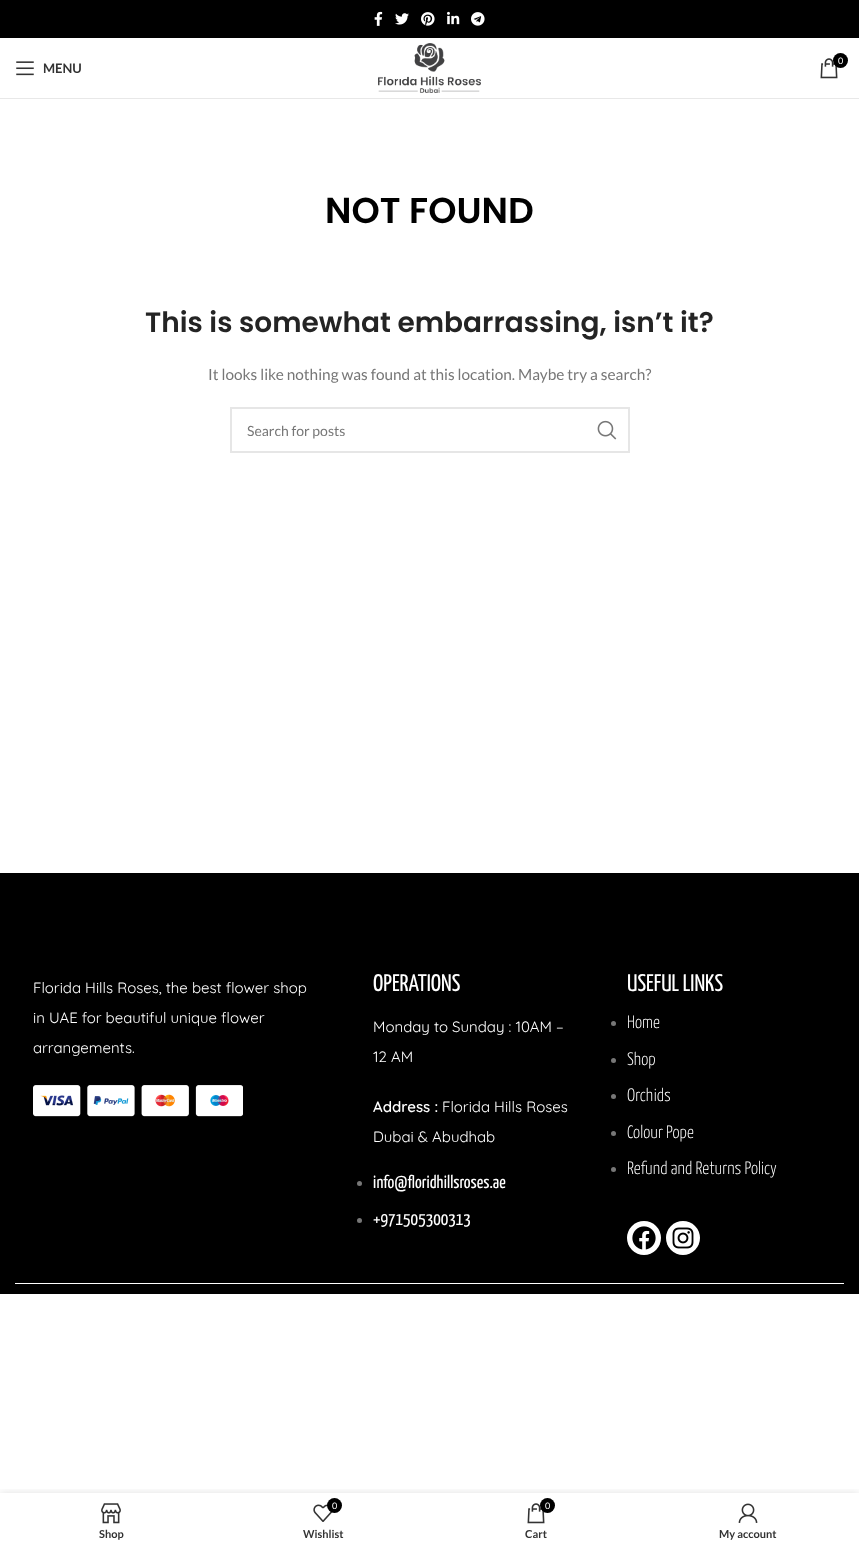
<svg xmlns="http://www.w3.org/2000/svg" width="859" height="1548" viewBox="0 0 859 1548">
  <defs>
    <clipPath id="clip1"><rect x="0" y="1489" width="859" height="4"/></clipPath>
    <filter id="blur1" x="-50%" y="-200%" width="200%" height="500%"><feGaussianBlur stdDeviation="4.5"/></filter>
  </defs>
  <rect width="100%" height="100%" fill="#ffffff"/>
  <rect x="0" y="0" width="859" height="38" fill="#000000"/>
  <image x="374" y="11" width="9" height="15" href="img1.png"/>
  <image x="395" y="13" width="14" height="12" href="img2.png"/>
  <image x="421" y="12" width="14" height="14" href="img3.png"/>
  <image x="447" y="11" width="13" height="14" href="img4.png"/>
  <image x="471" y="12" width="14" height="14" href="img5.png"/>
  <rect x="0" y="98" width="859" height="1" fill="#e8e8e8"/>
  <image x="378" y="43" width="103" height="50" href="img6.png"/>
  <image x="820" y="58" width="18" height="21" href="img7.png"/>
  <circle cx="840.5" cy="60.5" r="7.5" fill="#000000"/>
  <text x="838" y="64" font-family="Lato" font-size="9" fill="#ffffff">0</text>
  <image x="16" y="61" width="18" height="15" href="img8.png"/>
  <text x="43" y="73" font-family="Lato" font-size="13" font-weight="bold" fill="#333333">MENU</text>
  <text x="325" y="223" font-family="Poppins" font-size="36" font-weight="600" fill="#000000">NOT FOUND</text>
  <text x="145" y="332" font-family="Poppins" font-size="28" font-weight="600" fill="#242424">This is somewhat embarrassing, isn’t it?</text>
  <text x="208" y="380" font-family="Lato" font-size="15.4" fill="#777777">It looks like nothing was found at this location. Maybe try a search?</text>
  <rect x="231" y="408" width="398" height="44" fill="none" stroke="#e6e6e6" stroke-width="2"/>
  <text x="247" y="436" font-family="Lato" font-size="14" fill="#777777">Search for posts</text>
  <image x="597" y="420" width="20" height="20" href="img9.png"/>
  <rect x="0" y="873" width="859" height="421" fill="#000000"/>
  <rect x="15" y="1283" width="829" height="1" fill="#ffffff"/>
  <text x="33" y="993" font-family="Quicksand" font-size="15" fill="#ffffff">Florida Hills Roses, the best flower shop</text>
  <text x="33" y="1023" font-family="Quicksand" font-size="15" fill="#ffffff">in UAE for beautiful unique flower</text>
  <text x="33" y="1053" font-family="Quicksand" font-size="15" fill="#ffffff">arrangements.</text>
  <image x="33" y="1085" width="210" height="32" href="img10.png"/>
  <text x="373" y="991" font-family="Yanone Kaffeesatz" font-size="24" fill="#ffffff">OPERATIONS</text>
  <text x="373" y="1032" font-family="Quicksand" font-size="15" fill="#ffffff">Monday to Sunday : 10AM –</text>
  <text x="373" y="1062" font-family="Quicksand" font-size="15" fill="#ffffff">12 AM</text>
  <text x="373" y="1112" font-family="Quicksand" font-size="15" font-weight="600" fill="#ffffff">Address :</text>
  <text x="442" y="1112" font-family="Quicksand" font-size="15" fill="#ffffff">Florida Hills Roses</text>
  <text x="373" y="1142" font-family="Quicksand" font-size="15" fill="#ffffff">Dubai &amp; Abudhab</text>
  <circle cx="359.5" cy="1183.5" r="2.5" fill="#777777"/>
  <text x="373" y="1188" font-family="Yanone Kaffeesatz" font-size="18" fill="#ffffff">info@floridhillsroses.ae</text>
  <circle cx="359.5" cy="1220.5" r="2.5" fill="#777777"/>
  <text x="373" y="1225" font-family="Yanone Kaffeesatz" font-size="18" fill="#ffffff">+971505300313</text>
  <text x="627" y="991" font-family="Yanone Kaffeesatz" font-size="24" fill="#ffffff">USEFUL LINKS</text>
  <circle cx="613.5" cy="1023.5" r="2.5" fill="#777777"/>
  <text x="627" y="1028" font-family="Yanone Kaffeesatz" font-size="18" font-weight="300" fill="#ffffff">Home</text>
  <circle cx="613.5" cy="1060.5" r="2.5" fill="#777777"/>
  <text x="627" y="1065" font-family="Yanone Kaffeesatz" font-size="18" font-weight="300" fill="#ffffff">Shop</text>
  <circle cx="613.5" cy="1096.5" r="2.5" fill="#777777"/>
  <text x="627" y="1101" font-family="Yanone Kaffeesatz" font-size="18" font-weight="300" fill="#ffffff">Orchids</text>
  <circle cx="613.5" cy="1133.5" r="2.5" fill="#777777"/>
  <text x="627" y="1138" font-family="Yanone Kaffeesatz" font-size="18" font-weight="300" fill="#ffffff">Colour Pope</text>
  <circle cx="613.5" cy="1169.5" r="2.5" fill="#777777"/>
  <text x="627" y="1174" font-family="Yanone Kaffeesatz" font-size="18" font-weight="300" fill="#ffffff">Refund and Returns Policy</text>
  <circle cx="644" cy="1238" r="17" fill="#ffffff"/>
  <image x="632" y="1226" width="24" height="24" href="img11.png"/>
  <circle cx="683" cy="1238" r="17" fill="#ffffff"/>
  <image x="672" y="1227" width="22" height="22" href="img12.png"/>
  <g clip-path="url(#clip1)">
    <rect x="0" y="1493" width="859" height="55" fill="#000000" fill-opacity="0.12" filter="url(#blur1)"/>
  </g>
  <image x="101" y="1503" width="20" height="21" href="img13.png"/>
  <text x="99" y="1538" font-family="Lato" font-size="11" font-weight="bold" fill="#333333">Shop</text>
  <image x="313" y="1504" width="20" height="18" href="img14.png"/>
  <circle cx="334.5" cy="1505.5" r="7.5" fill="#000000"/>
  <text x="332" y="1509" font-family="Lato" font-size="9" fill="#ffffff">0</text>
  <text x="303" y="1538" font-family="Lato" font-size="11" font-weight="bold" fill="#333333">Wishlist</text>
  <image x="527" y="1503" width="18" height="21" href="img7.png"/>
  <circle cx="547.5" cy="1505.5" r="7.5" fill="#000000"/>
  <text x="545" y="1509" font-family="Lato" font-size="9" fill="#ffffff">0</text>
  <text x="525" y="1538" font-family="Lato" font-size="11" font-weight="bold" fill="#333333">Cart</text>
  <image x="738" y="1503" width="20" height="20" href="img15.png"/>
  <text x="719" y="1538" font-family="Lato" font-size="11" font-weight="bold" fill="#333333">My account</text>
</svg>
